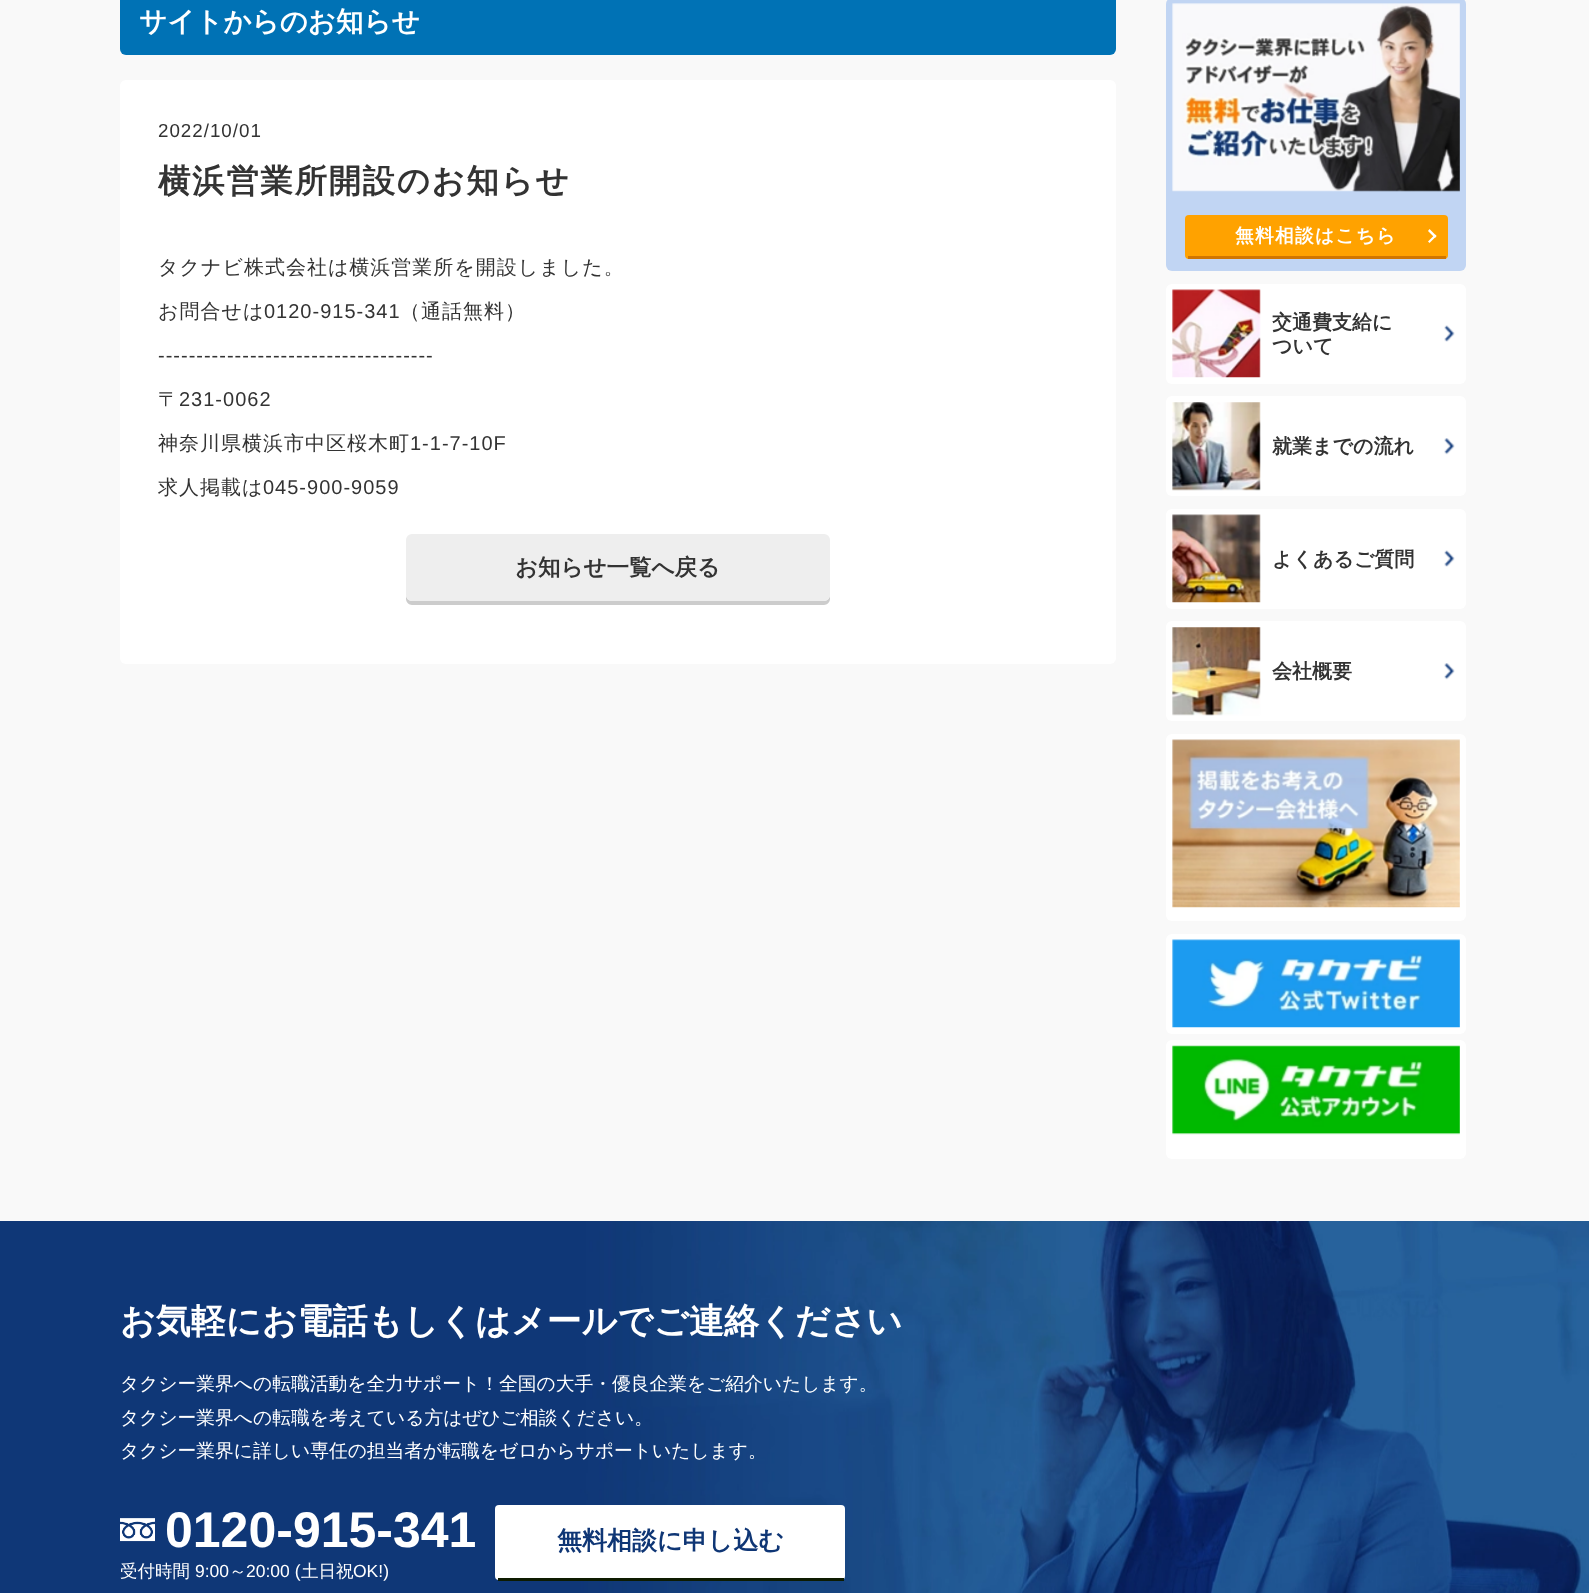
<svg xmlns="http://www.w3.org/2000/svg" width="1589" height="1593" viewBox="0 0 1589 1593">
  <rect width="100%" height="100%" fill="#f9f9f9"/>
  <rect x="120" y="-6" width="996" height="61" rx="6" fill="#0072b5"/>
  <text x="139" y="31" font-family="WenQuanYi Zen Hei" font-size="27.5" font-weight="bold" fill="#ffffff">サイトからのお知らせ</text>
  <rect x="120" y="80" width="996" height="584" rx="6" fill="#ffffff"/>
  <text x="158" y="137" font-family="Liberation Sans" font-size="18.75" letter-spacing="1" fill="#333333">2022/10/01</text>
  <text x="158" y="192" font-family="WenQuanYi Zen Hei" font-size="32.5" font-weight="bold" letter-spacing="1.6" fill="#333333">横浜営業所開設のお知らせ</text>
  <text x="158" y="274" font-family="WenQuanYi Zen Hei" font-size="20" font-weight="500" letter-spacing="1" fill="#333333">タクナビ株式会社は横浜営業所を開設しました。</text>
  <text x="158" y="318" font-family="WenQuanYi Zen Hei" font-size="20" font-weight="500" letter-spacing="1" fill="#333333">お問合せは</text>
  <text x="264" y="318" font-family="Liberation Sans" font-size="20" letter-spacing="1" fill="#333333">0120-915-341</text>
  <text x="400" y="318" font-family="WenQuanYi Zen Hei" font-size="20" font-weight="500" letter-spacing="1" fill="#333333">（通話無料）</text>
  <text x="158" y="362" font-family="Liberation Sans" font-size="20" letter-spacing="1" fill="#333333">------------------------------------</text>
  <text x="158" y="406" font-family="WenQuanYi Zen Hei" font-size="20" font-weight="500" letter-spacing="1" fill="#333333">〒</text>
  <text x="179" y="406" font-family="Liberation Sans" font-size="20" letter-spacing="1" fill="#333333">231-0062</text>
  <text x="158" y="450" font-family="WenQuanYi Zen Hei" font-size="20" font-weight="500" letter-spacing="1" fill="#333333">神奈川県横浜市中区桜木町</text>
  <text x="410" y="450" font-family="Liberation Sans" font-size="20" letter-spacing="1" fill="#333333">1-1-7-10F</text>
  <text x="158" y="494" font-family="WenQuanYi Zen Hei" font-size="20" font-weight="500" letter-spacing="1" fill="#333333">求人掲載は</text>
  <text x="263" y="494" font-family="Liberation Sans" font-size="20" letter-spacing="1" fill="#333333">045-900-9059</text>
  <path d="M406 542V599C406 602 409 605 412 605H824C827 605 830 602 830 599V595C830 598 827 601 824 601H412C409 601 406 598 406 595Z" fill="#cccccc"/>
  <rect x="406" y="534" width="424" height="67" rx="6" fill="#eeeeee"/>
  <text x="515" y="575" font-family="WenQuanYi Zen Hei" font-size="22.5" font-weight="bold" fill="#333333">お知らせ一覧へ戻る</text>
  <rect x="1166" y="-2" width="300" height="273" rx="6" fill="#c1d5f3"/>
  <image x="1172" y="3" width="288" height="189" href="img1.png"/>
  <rect x="1185" y="215" width="263" height="44" rx="4" fill="#ffa200"/>
  <rect x="1188" y="256" width="258" height="3" fill="#d07601"/>
  <text x="1235" y="242" font-family="WenQuanYi Zen Hei" font-size="18.75" font-weight="bold" letter-spacing="1.25" fill="#ffffff">無料相談はこちら</text>
  <path d="M1429.5 229L1436.5 236L1435 238L1428 231Z" fill="#ffffff"/>
  <path d="M1435 234.5L1436.5 236L1429.5 243L1428 241.5Z" fill="#ffffff"/>
  <rect x="1166" y="284" width="300" height="100" rx="6" fill="#ffffff"/>
  <image x="1172" y="289" width="89" height="89" href="img2.png"/>
  <text x="1272" y="329" font-family="WenQuanYi Zen Hei" font-size="20" font-weight="bold" fill="#333333">交通費支給に</text>
  <text x="1272" y="353" font-family="WenQuanYi Zen Hei" font-size="20" font-weight="bold" fill="#333333">ついて</text>
  <image x="1444" y="325" width="11" height="17" href="img3.png"/>
  <rect x="1166" y="396" width="300" height="100" rx="6" fill="#ffffff"/>
  <image x="1172" y="402" width="89" height="89" href="img4.png"/>
  <text x="1272" y="453" font-family="WenQuanYi Zen Hei" font-size="20" font-weight="bold" fill="#333333">就業までの流れ</text>
  <image x="1444" y="438" width="11" height="17" href="img5.png"/>
  <rect x="1166" y="509" width="300" height="100" rx="6" fill="#ffffff"/>
  <image x="1172" y="514" width="89" height="89" href="img6.png"/>
  <text x="1272" y="566" font-family="WenQuanYi Zen Hei" font-size="20" font-weight="bold" fill="#333333">よくあるご質問</text>
  <image x="1444" y="550" width="11" height="17" href="img3.png"/>
  <rect x="1166" y="621" width="300" height="100" rx="6" fill="#ffffff"/>
  <image x="1172" y="627" width="89" height="89" href="img7.png"/>
  <text x="1272" y="678" font-family="WenQuanYi Zen Hei" font-size="20" font-weight="bold" fill="#333333">会社概要</text>
  <image x="1444" y="663" width="11" height="17" href="img5.png"/>
  <rect x="1166" y="734" width="300" height="187" rx="6" fill="#ffffff"/>
  <image x="1172" y="739" width="288" height="169" href="img8.png"/>
  <rect x="1166" y="934" width="300" height="100" rx="6" fill="#ffffff"/>
  <image x="1172" y="939" width="288" height="89" href="img9.png"/>
  <rect x="1166" y="1040" width="300" height="119" rx="6" fill="#ffffff"/>
  <image x="1172" y="1045" width="288" height="90" href="img10.png"/>
  <image x="0" y="1221" width="1589" height="372" href="img11.png"/>
  <text x="120" y="1333" font-family="WenQuanYi Zen Hei" font-size="35" font-weight="bold" fill="#ffffff">お気軽にお電話もしくはメールでご連絡ください</text>
  <text x="120" y="1390" font-family="WenQuanYi Zen Hei" font-size="18.75" font-weight="500" fill="#ffffff">タクシー業界への転職活動を全力サポート！全国の大手・優良企業をご紹介いたします。</text>
  <text x="120" y="1424" font-family="WenQuanYi Zen Hei" font-size="18.75" font-weight="500" fill="#ffffff">タクシー業界への転職を考えている方はぜひご相談ください。</text>
  <text x="120" y="1457" font-family="WenQuanYi Zen Hei" font-size="18.75" font-weight="500" fill="#ffffff">タクシー業界に詳しい専任の担当者が転職をゼロからサポートいたします。</text>
  <image x="120" y="1518" width="35" height="24" href="img12.png"/>
  <text x="165" y="1547" font-family="Liberation Sans" font-size="50" font-weight="bold" fill="#ffffff">0120-915-341</text>
  <text x="120" y="1577" font-family="WenQuanYi Zen Hei" font-size="17.5" font-weight="500" fill="#ffffff">受付時間</text>
  <text x="195" y="1577" font-family="Liberation Sans" font-size="17.5" fill="#ffffff">9:00</text>
  <text x="229" y="1577" font-family="WenQuanYi Zen Hei" font-size="17.5" font-weight="500" fill="#ffffff">～</text>
  <text x="246" y="1577" font-family="Liberation Sans" font-size="17.5" fill="#ffffff">20:00 (</text>
  <text x="301" y="1577" font-family="WenQuanYi Zen Hei" font-size="17.5" font-weight="500" fill="#ffffff">土日祝</text>
  <text x="353" y="1577" font-family="Liberation Sans" font-size="17.5" fill="#ffffff">OK!)</text>
  <rect x="495" y="1505" width="350" height="75" rx="4" fill="#ffffff"/>
  <rect x="498" y="1578" width="346" height="3" fill="#0e1b00"/>
  <text x="557" y="1549" font-family="WenQuanYi Zen Hei" font-size="25" font-weight="bold" fill="#0f3675">無料相談に申し込む</text>
</svg>
